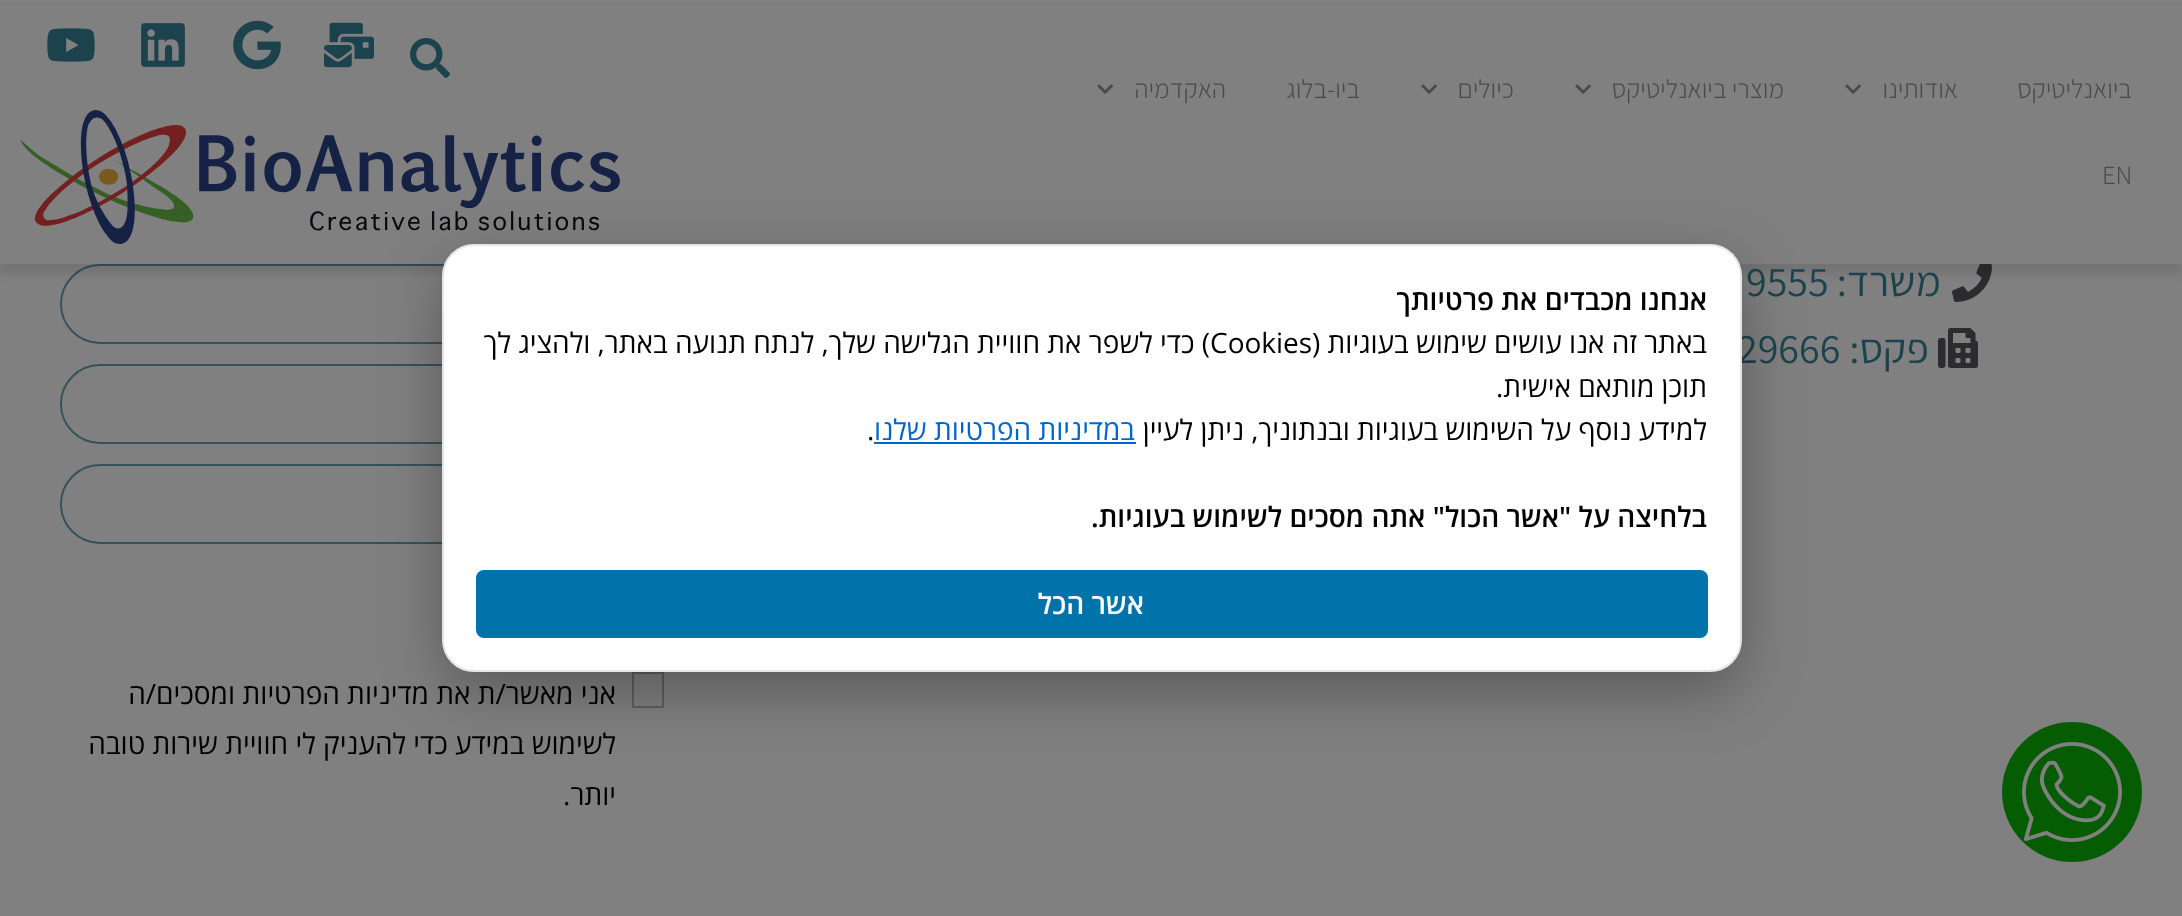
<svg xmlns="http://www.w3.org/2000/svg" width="2182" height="916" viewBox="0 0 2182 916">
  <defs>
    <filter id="blur1" x="-50%" y="-200%" width="200%" height="500%"><feGaussianBlur stdDeviation="5"/></filter>
    <filter id="blur2" x="-50%" y="-200%" width="200%" height="500%"><feGaussianBlur stdDeviation="30"/></filter>
  </defs>
  <rect width="100%" height="100%" fill="#808080"/>
  <image x="1952" y="264" width="40" height="38" href="img9.png"/>
  <rect x="61" y="265" width="632" height="78" rx="39" fill="none" stroke="#35525a" stroke-width="2"/>
  <rect x="0" y="10" width="2182" height="264" fill="#000000" fill-opacity="0.1" filter="url(#blur1)"/>
  <rect x="0" y="6" width="2182" height="258" fill="#808080"/>
  <text x="2132" y="98" font-family="Assistant" font-size="26.25" font-weight="300" direction="rtl" fill="#494a4c">ביואנליטיקס</text>
  <text x="1958" y="98" font-family="Assistant" font-size="26.25" font-weight="300" direction="rtl" fill="#494a4c">אודותינו</text>
  <image x="1845" y="84" width="16" height="10" href="img1.png"/>
  <text x="1784" y="98" font-family="Assistant" font-size="26.25" font-weight="300" direction="rtl" fill="#494a4c">מוצרי ביואנליטיקס</text>
  <image x="1575" y="84" width="16" height="10" href="img1.png"/>
  <text x="1514" y="98" font-family="Assistant" font-size="26.25" font-weight="300" direction="rtl" fill="#494a4c">כיולים</text>
  <image x="1421" y="84" width="16" height="10" href="img1.png"/>
  <text x="1360" y="98" font-family="Assistant" font-size="26.25" font-weight="300" direction="rtl" fill="#494a4c">ביו-בלוג</text>
  <text x="1226" y="98" font-family="Assistant" font-size="26.25" font-weight="300" direction="rtl" fill="#494a4c">האקדמיה</text>
  <image x="1097" y="84" width="16" height="10" href="img1.png"/>
  <text x="2102" y="184" font-family="Assistant" font-size="26.25" font-weight="300" fill="#494a4c">EN</text>
  <image x="410" y="38" width="40" height="40" href="img2.png"/>
  <image x="324" y="22" width="50" height="46" href="img3.png"/>
  <image x="233" y="20" width="48" height="50" href="img4.png"/>
  <image x="141" y="23" width="44" height="44" href="img5.png"/>
  <image x="47" y="28" width="48" height="34" href="img6.png"/>
  <image x="20" y="110" width="600" height="134" href="img7.png"/>
  <circle cx="2072" cy="792" r="70" fill="#055c03"/>
  <image x="2022" y="742" width="100" height="100" href="img8.png"/>
  <text x="1941" y="296" font-family="Assistant" font-size="42" direction="rtl" fill="#1c434d">משרד:</text>
  <text x="1746" y="296" font-family="Assistant" font-size="42" fill="#1c434d">9555</text>
  <image x="1938" y="328" width="40" height="40" href="img10.png"/>
  <text x="1929" y="363" font-family="Assistant" font-size="42" direction="rtl" fill="#1c434d">פקס:</text>
  <text x="1737" y="363" font-family="Assistant" font-size="42" fill="#1c434d">29666</text>
  <rect x="61" y="365" width="632" height="78" rx="39" fill="none" stroke="#35525a" stroke-width="2"/>
  <rect x="61" y="465" width="632" height="78" rx="39" fill="none" stroke="#35525a" stroke-width="2"/>
  <rect x="633" y="673" width="30" height="34" fill="none" stroke="#5e5e5e" stroke-width="2"/>
  <text x="616" y="704" font-family="Open Sans" font-size="28" direction="rtl" fill="#000000">אני מאשר/ת את</text>
  <text x="429" y="704" font-family="Open Sans" font-size="28" direction="rtl" fill="#000000">מדיניות הפרטיות</text>
  <text x="235" y="704" font-family="Open Sans" font-size="28" direction="rtl" fill="#000000">ומסכים/ה</text>
  <text x="616" y="754" font-family="Open Sans" font-size="28" direction="rtl" fill="#000000">לשימוש במידע כדי להעניק לי חוויית שירות טובה</text>
  <text x="616" y="805" font-family="Open Sans" font-size="28" direction="rtl" fill="#000000">יותר.</text>
  <rect x="442" y="264" width="1300" height="428" rx="32" fill="#000000" fill-opacity="0.3" filter="url(#blur2)"/>
  <rect x="443" y="245" width="1298" height="426" rx="31" fill="#ffffff" stroke="#e5e5e5" stroke-width="2"/>
  <text x="1707" y="310" font-family="Open Sans" font-size="28" font-weight="600" direction="rtl" fill="#000000">אנחנו מכבדים את פרטיותך</text>
  <text x="1707" y="353" font-family="Open Sans" font-size="28" direction="rtl" fill="#000000">באתר זה אנו עושים שימוש בעוגיות (</text>
  <text x="1210" y="353" font-family="Open Sans" font-size="28" fill="#000000">Cookies</text>
  <text x="1210" y="353" font-family="Open Sans" font-size="28" direction="rtl" fill="#000000">) כדי לשפר את חוויית הגלישה שלך, לנתח תנועה באתר, ולהציג לך</text>
  <text x="1707" y="397" font-family="Open Sans" font-size="28" direction="rtl" fill="#000000">תוכן מותאם אישית.</text>
  <text x="1707" y="440" font-family="Open Sans" font-size="28" direction="rtl" fill="#000000">למידע נוסף על השימוש בעוגיות ובנתוניך, ניתן לעיין</text>
  <text x="1135" y="440" font-family="Open Sans" font-size="28" direction="rtl" fill="#0066cc">במדיניות הפרטיות שלנו</text>
  <rect x="874" y="442" width="262" height="2" fill="#0066cc"/>
  <text x="867" y="440" font-family="Open Sans" font-size="28" fill="#000000">.</text>
  <text x="1707" y="527" font-family="Open Sans" font-size="28" font-weight="600" direction="rtl" fill="#000000">בלחיצה על "אשר הכול" אתה מסכים לשימוש בעוגיות.</text>
  <rect x="476" y="570" width="1232" height="68" rx="8" fill="#0073aa"/>
  <text x="1144" y="614" font-family="Open Sans" font-size="28" font-weight="600" direction="rtl" fill="#ffffff">אשר הכל</text>
</svg>
